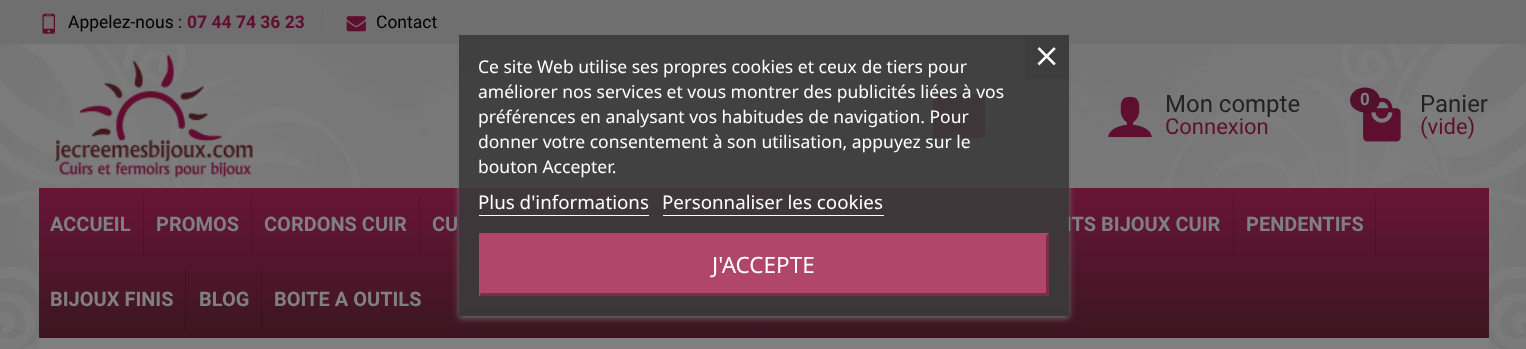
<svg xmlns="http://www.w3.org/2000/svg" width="1526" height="349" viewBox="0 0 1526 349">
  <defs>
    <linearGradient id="g1" gradientUnits="userSpaceOnUse" x1="764" y1="187" x2="764" y2="338"><stop offset="0" stop-color="#691536"/><stop offset="1" stop-color="#3b1621"/></linearGradient>
    <clipPath id="clip1"><path d="M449 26H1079V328H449ZM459 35H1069V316H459Z" clip-rule="evenodd"/></clipPath>
    <filter id="blur1" x="-50%" y="-200%" width="200%" height="500%"><feGaussianBlur stdDeviation="3"/></filter>
  </defs>
  <rect width="100%" height="100%" fill="#ffffff"/>
  <image x="0" y="44" width="1526" height="305" href="img1.png"/>
  <rect x="0" y="0" width="1526" height="44" fill="#6f6f6f"/>
  <rect x="325" y="10" width="1" height="24" fill="#727272"/>
  <image x="42" y="13" width="13" height="21" href="img2.png"/>
  <text x="68" y="28" font-family="Roboto" font-size="17.5" fill="#000000">Appelez-nous :</text>
  <text x="187" y="28" font-family="Roboto" font-size="17.5" font-weight="bold" fill="#5e0f2f">07 44 74 36 23</text>
  <image x="346" y="16" width="20" height="16" href="img3.png"/>
  <text x="376" y="28" font-family="Roboto" font-size="17.5" fill="#000000">Contact</text>
  <image x="54" y="54" width="199" height="124" href="img4.png"/>
  <path d="M590 94H933V138H590C587 138 585 136 585 133V99C585 96 587 94 590 94Z" fill="#777777"/>
  <path d="M933 94H980C983 94 985 96 985 99V133C985 136 983 138 980 138H933Z" fill="#5e0f2f"/>
  <image x="1108" y="96" width="44" height="42" href="img5.png"/>
  <text x="1165" y="112" font-family="Roboto" font-size="24" fill="#222222">Mon compte</text>
  <text x="1165" y="134" font-family="Roboto" font-size="22" fill="#5e0f2f">Connexion</text>
  <image x="1363" y="97" width="38" height="45" href="img6.png"/>
  <ellipse cx="1365" cy="100" rx="15" ry="12.5" fill="#51112a"/>
  <text x="1360" y="105" font-family="Roboto" font-size="17" font-weight="bold" fill="#808080">0</text>
  <text x="1420" y="112" font-family="Roboto" font-size="24" fill="#222222">Panier</text>
  <text x="1420" y="134" font-family="Roboto" font-size="22" fill="#5e0f2f">(vide)</text>
  <rect x="39" y="188" width="1450" height="150" fill="url(#g1)"/>
  <rect x="143" y="194" width="1" height="62" fill="#000000" fill-opacity="0.15"/>
  <text x="50" y="231" font-family="Roboto" font-size="20" font-weight="bold" fill="#808080">ACCUEIL</text>
  <rect x="251" y="194" width="1" height="62" fill="#000000" fill-opacity="0.15"/>
  <text x="156" y="231" font-family="Roboto" font-size="20" font-weight="bold" fill="#808080">PROMOS</text>
  <rect x="419" y="194" width="1" height="62" fill="#000000" fill-opacity="0.15"/>
  <text x="264" y="231" font-family="Roboto" font-size="20" font-weight="bold" fill="#808080">CORDONS CUIR</text>
  <rect x="576" y="194" width="1" height="39" fill="#000000" fill-opacity="0.15"/>
  <text x="432" y="231" font-family="Roboto" font-size="20" font-weight="bold" fill="#808080">CU</text>
  <rect x="703" y="194" width="1" height="39" fill="#000000" fill-opacity="0.15"/>
  <rect x="825" y="194" width="1" height="39" fill="#000000" fill-opacity="0.15"/>
  <rect x="944" y="194" width="1" height="39" fill="#000000" fill-opacity="0.15"/>
  <rect x="1040" y="194" width="1" height="39" fill="#000000" fill-opacity="0.15"/>
  <rect x="1233" y="194" width="1" height="62" fill="#000000" fill-opacity="0.15"/>
  <text x="1066" y="231" font-family="Roboto" font-size="20" font-weight="bold" fill="#808080">ITS BIJOUX CUIR</text>
  <rect x="1375" y="194" width="1" height="62" fill="#000000" fill-opacity="0.15"/>
  <text x="1246" y="231" font-family="Roboto" font-size="20" font-weight="bold" fill="#808080">PENDENTIFS</text>
  <rect x="185" y="269" width="1" height="62" fill="#000000" fill-opacity="0.15"/>
  <text x="50" y="306" font-family="Roboto" font-size="20" font-weight="bold" fill="#808080">BIJOUX FINIS</text>
  <rect x="261" y="269" width="1" height="62" fill="#000000" fill-opacity="0.15"/>
  <text x="199" y="306" font-family="Roboto" font-size="20" font-weight="bold" fill="#808080">BLOG</text>
  <text x="274" y="306" font-family="Roboto" font-size="20" font-weight="bold" fill="#808080">BOITE A OUTILS</text>
  <g clip-path="url(#clip1)">
    <rect x="459" y="36" width="610" height="282" fill="#707070" filter="url(#blur1)"/>
  </g>
  <rect x="459" y="35" width="610" height="281" fill="#3b3b3b" fill-opacity="0.9"/>
  <text x="478" y="73" font-family="Noto Sans" font-size="17.5" fill="#ffffff">Ce site Web utilise ses propres cookies et ceux de tiers pour</text>
  <text x="478" y="98" font-family="Noto Sans" font-size="17.5" fill="#ffffff">améliorer nos services et vous montrer des publicités liées à vos</text>
  <text x="478" y="123" font-family="Noto Sans" font-size="17.5" fill="#ffffff">préférences en analysant vos habitudes de navigation. Pour</text>
  <text x="478" y="148" font-family="Noto Sans" font-size="17.5" fill="#ffffff">donner votre consentement à son utilisation, appuyez sur le</text>
  <text x="478" y="173" font-family="Noto Sans" font-size="17.5" fill="#ffffff">bouton Accepter.</text>
  <text x="478" y="209" font-family="Noto Sans" font-size="18.75" fill="#ffffff">Plus d'informations</text>
  <rect x="479" y="215" width="170" height="1" fill="#ffffff"/>
  <text x="662" y="209" font-family="Noto Sans" font-size="18.75" fill="#ffffff">Personnaliser les cookies</text>
  <rect x="663" y="215" width="221" height="1" fill="#ffffff"/>
  <rect x="479" y="234" width="570" height="62" fill="#b1466b"/>
  <path d="M479 233H1049L1046 236H481Z" fill="#b1466b"/>
  <path d="M1049 233V296L1046 293V236Z" fill="#762f47"/>
  <path d="M1049 296H479L481 293H1046Z" fill="#762f47"/>
  <path d="M479 296V233L481 236V293Z" fill="#b1466b"/>
  <text x="712" y="273" font-family="Noto Sans" font-size="22.5" fill="#ffffff">J'ACCEPTE</text>
  <rect x="1025" y="35" width="44" height="44" fill="#3d3d3d"/>
  <image x="1037" y="47" width="19" height="19" href="img7.png"/>
  <rect x="39" y="338" width="1450" height="11" fill="#808080"/>
</svg>
